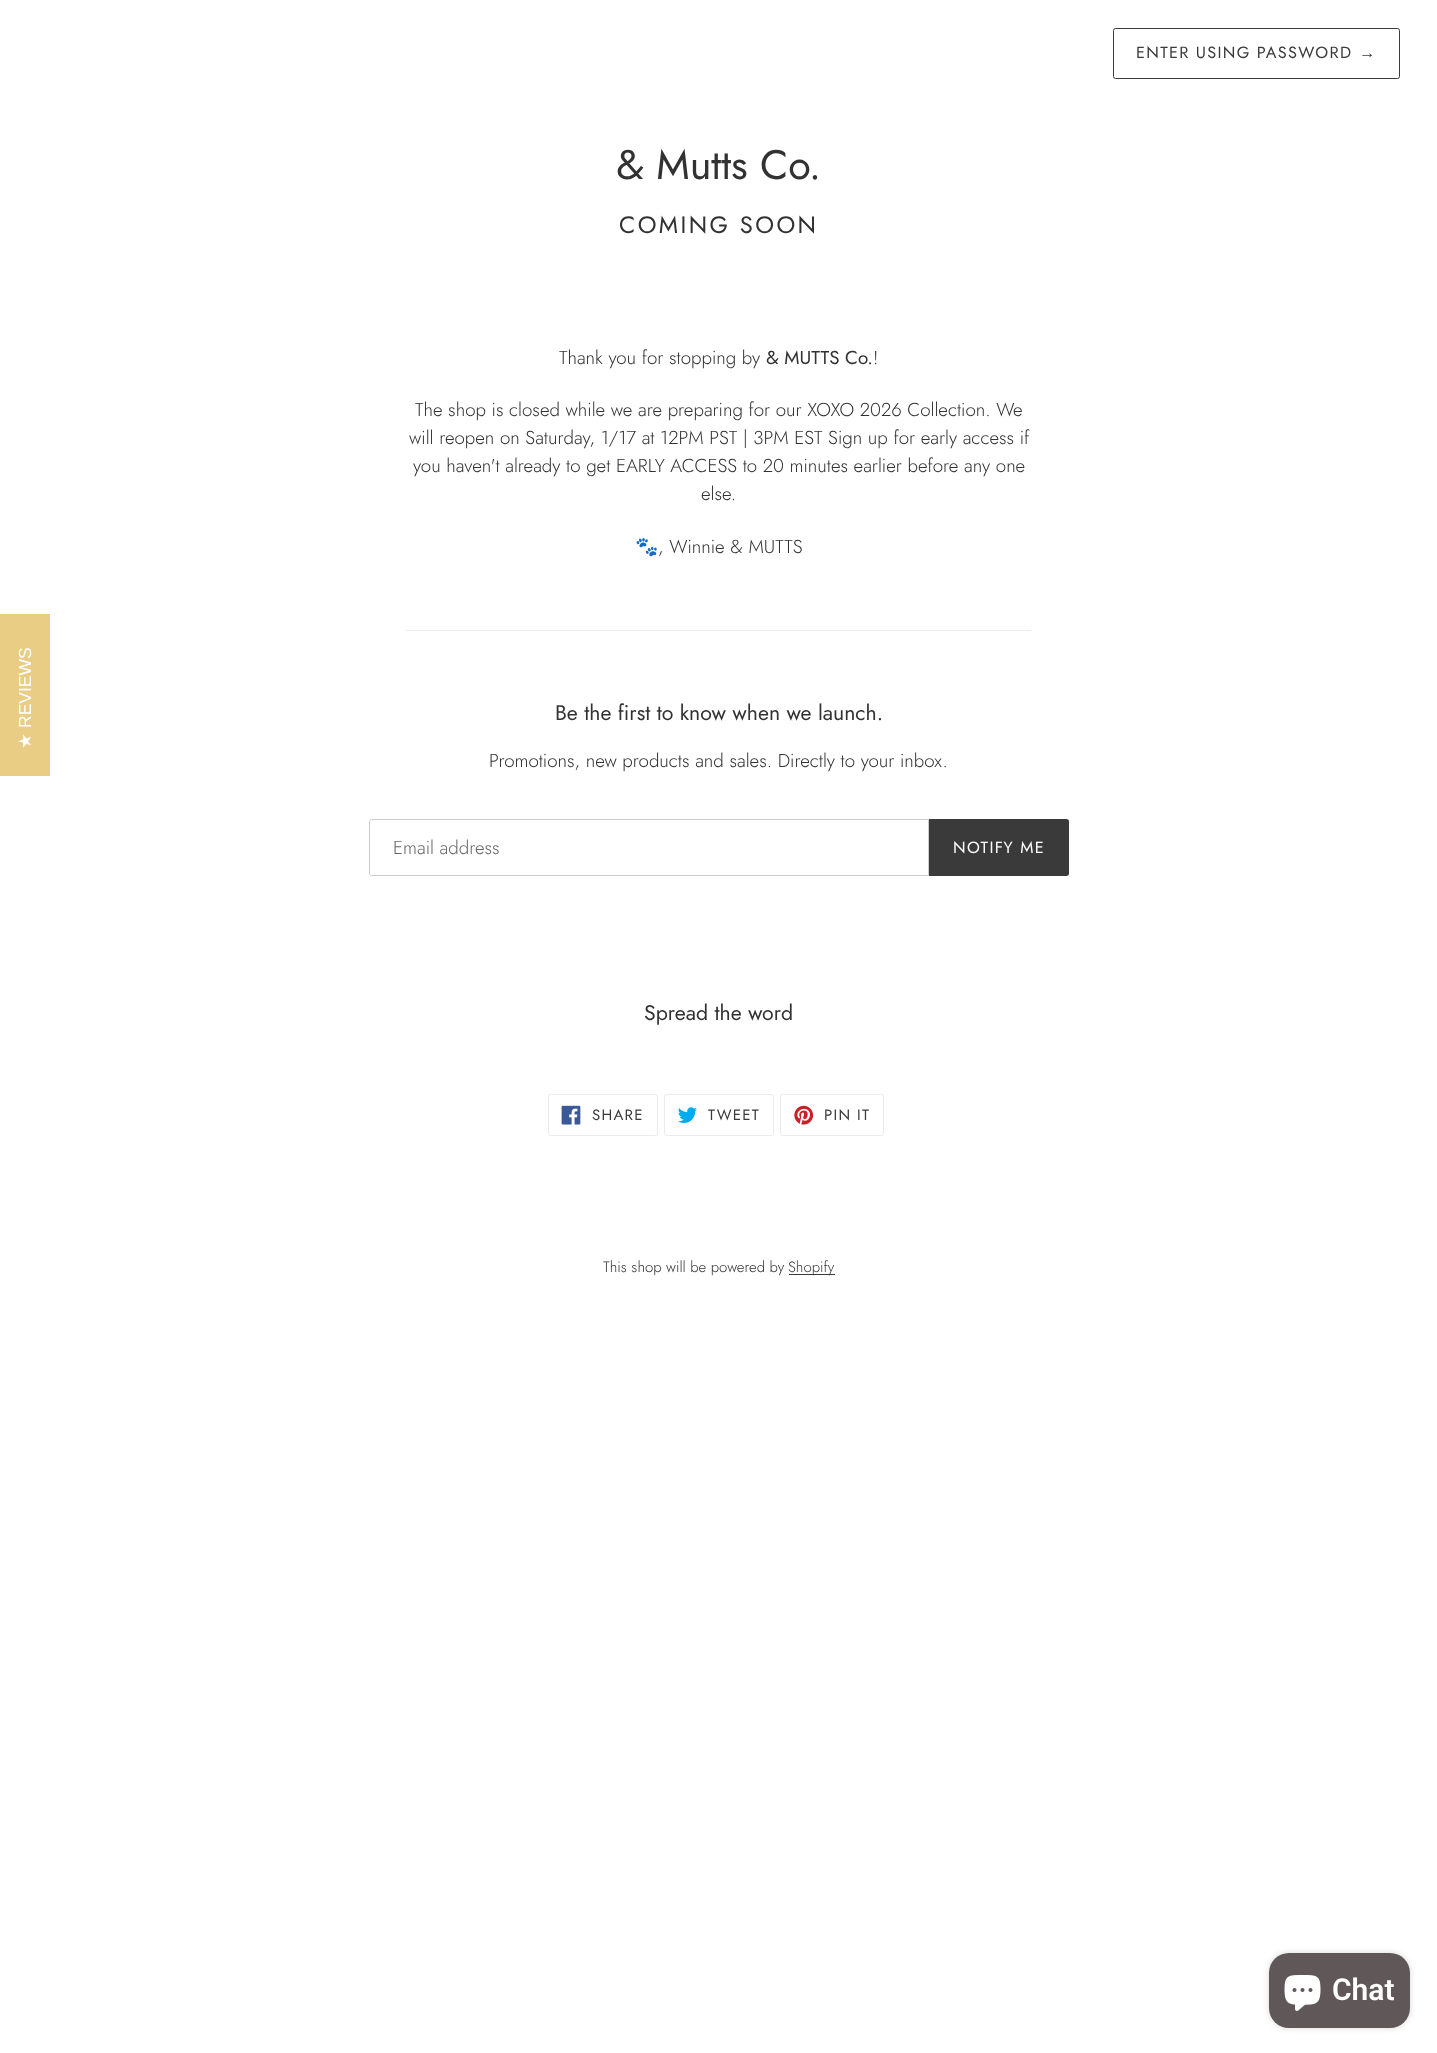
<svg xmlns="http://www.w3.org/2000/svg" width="1437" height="2053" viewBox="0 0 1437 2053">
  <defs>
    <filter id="blur1" x="-50%" y="-200%" width="200%" height="500%"><feGaussianBlur stdDeviation="3"/></filter>
  </defs>
  <rect width="100%" height="100%" fill="#ffffff"/>
  <rect x="0" y="614" width="50" height="162" fill="#eacd84"/>
  <text x="31" y="728" transform="rotate(-90 31 728)" font-family="Liberation Sans" font-size="17.5" fill="#ffffff">REVIEWS</text>
  <text x="31" y="749" transform="rotate(-90 31 749)" font-family="DejaVu Sans" font-size="17.5" fill="#ffffff">★</text>
  <rect x="1113.5" y="28.5" width="286" height="50" rx="2" fill="none" stroke="#3a3a3a"/>
  <text x="1136" y="58" font-family="Jost" font-size="16.25" letter-spacing="1.3" fill="#3a3a3a">ENTER USING PASSWORD</text>
  <text x="1359" y="58" font-family="Liberation Sans" font-size="16.25" letter-spacing="1.3" fill="#3a3a3a">→</text>
  <text x="616" y="179" font-family="Jost" font-size="41.25" fill="#333232">&amp; Mutts Co.</text>
  <text x="619" y="233" font-family="Jost" font-size="23.75" letter-spacing="2.4" fill="#333232">COMING SOON</text>
  <text x="559" y="364" font-family="Jost" font-size="18.75" font-weight="300" fill="#333232">Thank you for stopping by</text>
  <text x="766" y="364" font-family="Jost" font-size="18.75" fill="#333232">&amp; MUTTS Co.</text>
  <text x="873" y="364" font-family="Jost" font-size="18.75" font-weight="300" fill="#333232">!</text>
  <text x="415" y="416" font-family="Jost" font-size="18.75" font-weight="300" fill="#333232">The shop is closed while we are preparing for our XOXO 2026 Collection. We</text>
  <text x="409" y="444" font-family="Jost" font-size="18.75" font-weight="300" fill="#333232">will reopen on Saturday, 1/17 at 12PM PST | 3PM EST Sign up for early access if</text>
  <text x="413" y="472" font-family="Jost" font-size="18.75" font-weight="300" fill="#333232">you haven't already to get EARLY ACCESS to 20 minutes earlier before any one</text>
  <text x="701" y="500" font-family="Jost" font-size="18.75" font-weight="300" fill="#333232">else.</text>
  <text x="635" y="553" font-family="Noto Color Emoji" font-size="18.75" fill="#333232">🐾</text>
  <text x="658" y="553" font-family="Jost" font-size="18.75" font-weight="300" fill="#333232">, Winnie &amp; MUTTS</text>
  <rect x="406" y="630" width="625" height="1" fill="#ebebeb"/>
  <text x="555" y="720" font-family="Jost" font-size="21.25" fill="#333232">Be the first to know when we launch.</text>
  <text x="489" y="767" font-family="Jost" font-size="18.75" font-weight="300" fill="#333232">Promotions, new products and sales. Directly to your inbox.</text>
  <path d="M371.5 819.5H928.5V875.5H371.5C370.5 875.5 369.5 874.5 369.5 873.5V821.5C369.5 820.5 370.5 819.5 371.5 819.5Z" fill="none" stroke="#cccccc"/>
  <text x="393" y="854" font-family="Jost" font-size="18.75" font-weight="300" fill="#666666">Email address</text>
  <path d="M929 819H1066.5C1068 819 1069 820 1069 821.5V873.5C1069 875 1068 876 1066.5 876H929Z" fill="#3a3a3a"/>
  <text x="953" y="853" font-family="Jost" font-size="16.25" letter-spacing="1.3" fill="#ffffff">NOTIFY ME</text>
  <text x="644" y="1020" font-family="Jost" font-size="21.25" fill="#333232">Spread the word</text>
  <rect x="548.5" y="1094.5" width="109" height="41" rx="2" fill="none" stroke="#ebebeb"/>
  <image x="561" y="1105" width="20" height="20" href="img1.png"/>
  <text x="592" y="1120" font-family="Jost" font-size="15" letter-spacing="1.25" fill="#3a3a3a">SHARE</text>
  <rect x="664.5" y="1094.5" width="109" height="41" rx="2" fill="none" stroke="#ebebeb"/>
  <image x="678" y="1107" width="19" height="16" href="img2.png"/>
  <text x="708" y="1120" font-family="Jost" font-size="15" letter-spacing="1.25" fill="#3a3a3a">TWEET</text>
  <rect x="780.5" y="1094.5" width="103" height="41" rx="2" fill="none" stroke="#ebebeb"/>
  <image x="794" y="1105" width="20" height="20" href="img3.png"/>
  <text x="824" y="1120" font-family="Jost" font-size="15" letter-spacing="1.25" fill="#3a3a3a">PIN IT</text>
  <text x="603" y="1272" font-family="Jost" font-size="15" font-weight="300" fill="#333232">This shop will be powered by</text>
  <rect x="789" y="1274" width="46" height="1" fill="#3a3a3a"/>
  <text x="788" y="1272" font-family="Jost" font-size="15" font-weight="300" fill="#3a3a3a">Shopify</text>
  <rect x="1269" y="1953" width="141" height="75" rx="20" fill="#000000" fill-opacity="0.15" filter="url(#blur1)"/>
  <rect x="1269" y="1953" width="141" height="75" rx="20" fill="#605858"/>
  <image x="1284" y="1975" width="37" height="36" href="img4.png"/>
  <text x="1332" y="2000" font-family="Roboto" font-size="30" font-weight="600" fill="#ffffff">Chat</text>
</svg>
